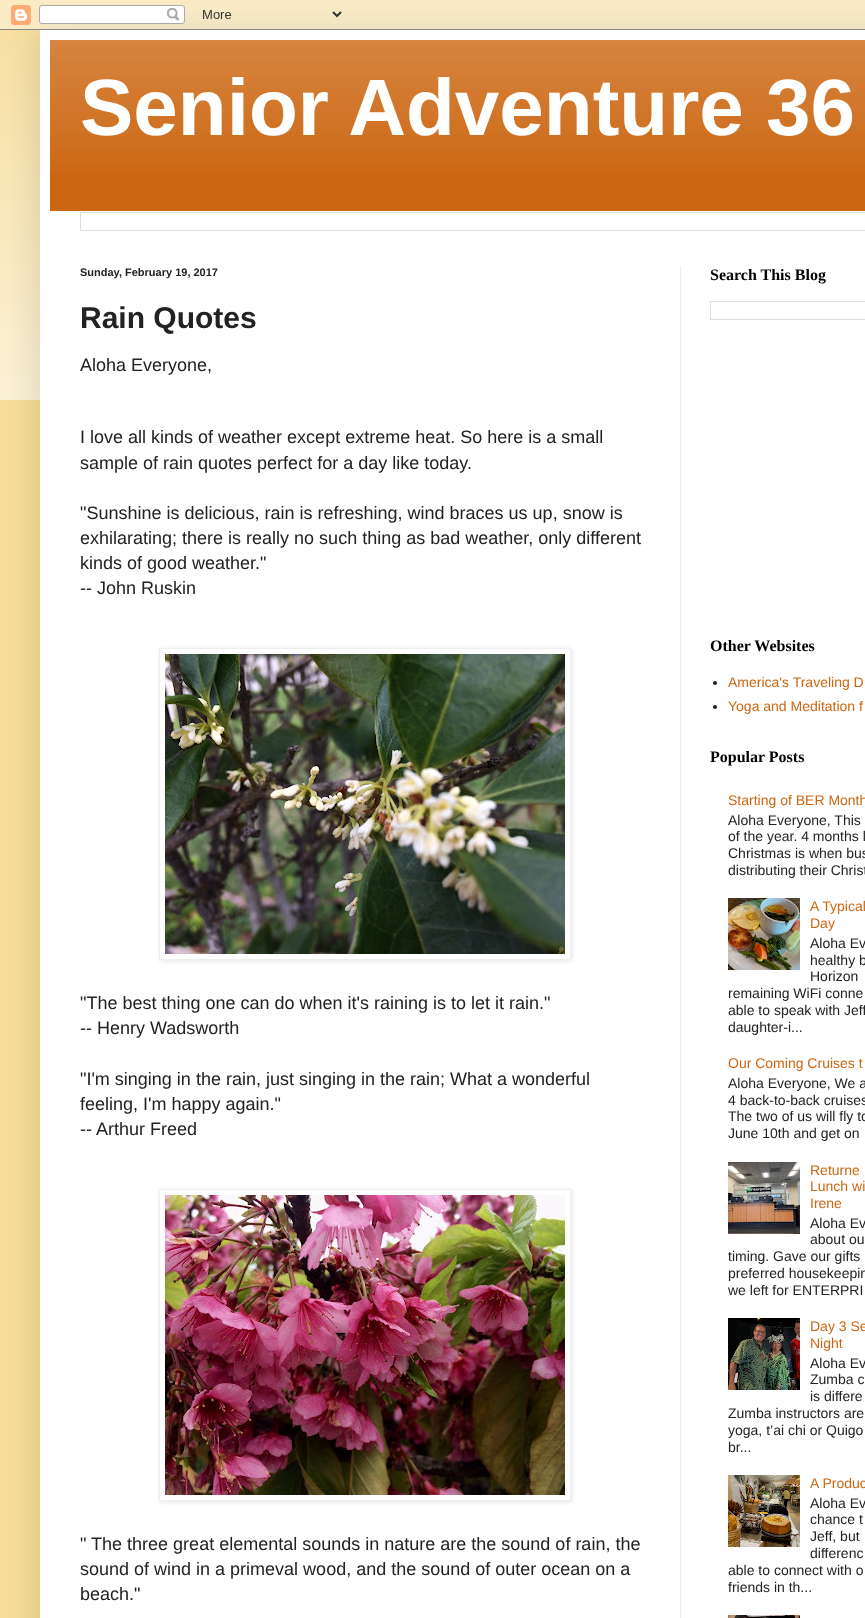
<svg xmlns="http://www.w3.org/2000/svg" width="865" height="1618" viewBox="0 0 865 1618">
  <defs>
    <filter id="blur1" x="-50%" y="-200%" width="200%" height="500%"><feGaussianBlur stdDeviation="20"/></filter>
    <clipPath id="clip1"><path d="M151 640H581V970H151ZM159 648H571V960H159Z" clip-rule="evenodd"/></clipPath>
    <filter id="blur2" x="-50%" y="-200%" width="200%" height="500%"><feGaussianBlur stdDeviation="2.5"/></filter>
    <clipPath id="clip2"><path d="M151 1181H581V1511H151ZM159 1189H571V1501H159Z" clip-rule="evenodd"/></clipPath>
  </defs>
  <rect width="100%" height="100%" fill="#f8de99"/>
  <image x="0" y="0" width="865" height="400" href="img1.png"/>
  <rect x="40" y="30" width="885" height="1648" fill="#000000" fill-opacity="0.15" filter="url(#blur1)"/>
  <image x="0" y="0" width="865" height="30" href="img2.png"/>
  <rect x="40" y="30" width="825" height="1588" fill="#ffffff"/>
  <rect x="50" y="40" width="815" height="171" fill="#cc6611"/>
  <image x="50" y="40" width="815" height="133" href="img3.png"/>
  <text x="80" y="135" font-family="Liberation Sans" font-size="80" font-weight="bold" fill="#ffffff">Senior Adventure 36</text>
  <rect x="80.5" y="212.5" width="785" height="18" fill="none" stroke="#dddddd"/>
  <rect x="680" y="266" width="1" height="1352" fill="#eeeeee"/>
  <text x="80" y="276" font-family="Liberation Sans" font-size="11" font-weight="bold" fill="#222222">Sunday, February 19, 2017</text>
  <text x="80" y="328" font-family="Liberation Sans" font-size="30" font-weight="bold" fill="#222222">Rain Quotes</text>
  <text x="80" y="371" font-family="Liberation Sans" font-size="18" fill="#222222">Aloha Everyone,</text>
  <text x="80" y="443" font-family="Liberation Sans" font-size="18" fill="#222222">I love all kinds of weather except extreme heat. So here is a small</text>
  <text x="80" y="469" font-family="Liberation Sans" font-size="18" fill="#222222">sample of rain quotes perfect for a day like today.</text>
  <text x="80" y="519" font-family="Liberation Sans" font-size="18" fill="#222222">"Sunshine is delicious, rain is refreshing, wind braces us up, snow is</text>
  <text x="80" y="544" font-family="Liberation Sans" font-size="18" fill="#222222">exhilarating; there is really no such thing as bad weather, only different</text>
  <text x="80" y="569" font-family="Liberation Sans" font-size="18" fill="#222222">kinds of good weather."</text>
  <text x="80" y="594" font-family="Liberation Sans" font-size="18" fill="#222222">-- John Ruskin</text>
  <g clip-path="url(#clip1)">
    <rect x="160" y="649" width="412" height="312" fill="#000000" fill-opacity="0.1" filter="url(#blur2)"/>
  </g>
  <rect x="159.5" y="648.5" width="411" height="311" fill="none" stroke="#eeeeee"/>
  <image x="165" y="654" width="400" height="300" href="img4.png"/>
  <text x="80" y="1009" font-family="Liberation Sans" font-size="18" fill="#222222">"The best thing one can do when it's raining is to let it rain."</text>
  <text x="80" y="1034" font-family="Liberation Sans" font-size="18" fill="#222222">-- Henry Wadsworth</text>
  <text x="80" y="1085" font-family="Liberation Sans" font-size="18" fill="#222222">"I'm singing in the rain, just singing in the rain; What a wonderful</text>
  <text x="80" y="1110" font-family="Liberation Sans" font-size="18" fill="#222222">feeling, I'm happy again."</text>
  <text x="80" y="1135" font-family="Liberation Sans" font-size="18" fill="#222222">-- Arthur Freed</text>
  <g clip-path="url(#clip2)">
    <rect x="160" y="1190" width="412" height="312" fill="#000000" fill-opacity="0.1" filter="url(#blur2)"/>
  </g>
  <rect x="159.5" y="1189.5" width="411" height="311" fill="none" stroke="#eeeeee"/>
  <image x="165" y="1195" width="400" height="300" href="img5.png"/>
  <text x="80" y="1550" font-family="Liberation Sans" font-size="18" fill="#222222">" The three great elemental sounds in nature are the sound of rain, the</text>
  <text x="80" y="1575" font-family="Liberation Sans" font-size="18" fill="#222222">sound of wind in a primeval wood, and the sound of outer ocean on a</text>
  <text x="80" y="1600" font-family="Liberation Sans" font-size="18" fill="#222222">beach."</text>
  <text x="710" y="280" font-family="Liberation Serif" font-size="16" font-weight="bold" fill="#000000">Search This Blog</text>
  <rect x="710.5" y="301.5" width="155" height="18" fill="none" stroke="#dddddd"/>
  <text x="710" y="651" font-family="Liberation Serif" font-size="16" font-weight="bold" fill="#000000">Other Websites</text>
  <circle cx="715" cy="683" r="2" fill="#222222"/>
  <text x="728" y="687" font-family="Liberation Sans" font-size="14" fill="#cc6611">America's Traveling D</text>
  <circle cx="715" cy="707" r="2" fill="#222222"/>
  <text x="728" y="711" font-family="Liberation Sans" font-size="14" fill="#cc6611">Yoga and Meditation f</text>
  <text x="710" y="762" font-family="Liberation Serif" font-size="16" font-weight="bold" fill="#000000">Popular Posts</text>
  <text x="728" y="805" font-family="Liberation Sans" font-size="14" fill="#cc6611">Starting of BER Month</text>
  <text x="728" y="825" font-family="Liberation Sans" font-size="14" fill="#222222">Aloha Everyone, This</text>
  <text x="728" y="841" font-family="Liberation Sans" font-size="14" fill="#222222">of the year. 4 months l</text>
  <text x="728" y="858" font-family="Liberation Sans" font-size="14" fill="#222222">Christmas is when bus</text>
  <text x="728" y="875" font-family="Liberation Sans" font-size="14" fill="#222222">distributing their Christ</text>
  <image x="728" y="898" width="72" height="72" href="img6.png"/>
  <text x="810" y="911" font-family="Liberation Sans" font-size="14" fill="#cc6611">A Typical</text>
  <text x="810" y="928" font-family="Liberation Sans" font-size="14" fill="#cc6611">Day</text>
  <text x="810" y="948" font-family="Liberation Sans" font-size="14" fill="#222222">Aloha Ev</text>
  <text x="810" y="965" font-family="Liberation Sans" font-size="14" fill="#222222">healthy b</text>
  <text x="810" y="981" font-family="Liberation Sans" font-size="14" fill="#222222">Horizon</text>
  <text x="728" y="998" font-family="Liberation Sans" font-size="14" fill="#222222">remaining WiFi conne</text>
  <text x="728" y="1015" font-family="Liberation Sans" font-size="14" fill="#222222">able to speak with Jeff</text>
  <text x="728" y="1032" font-family="Liberation Sans" font-size="14" fill="#222222">daughter-i...</text>
  <text x="728" y="1068" font-family="Liberation Sans" font-size="14" fill="#cc6611">Our Coming Cruises t</text>
  <text x="728" y="1088" font-family="Liberation Sans" font-size="14" fill="#222222">Aloha Everyone, We a</text>
  <text x="728" y="1105" font-family="Liberation Sans" font-size="14" fill="#222222">4 back-to-back cruises</text>
  <text x="728" y="1121" font-family="Liberation Sans" font-size="14" fill="#222222">The two of us will fly to</text>
  <text x="728" y="1138" font-family="Liberation Sans" font-size="14" fill="#222222">June 10th and get on</text>
  <image x="728" y="1162" width="72" height="72" href="img7.png"/>
  <text x="810" y="1175" font-family="Liberation Sans" font-size="14" fill="#cc6611">Returne</text>
  <text x="810" y="1191" font-family="Liberation Sans" font-size="14" fill="#cc6611">Lunch wi</text>
  <text x="810" y="1208" font-family="Liberation Sans" font-size="14" fill="#cc6611">Irene</text>
  <text x="810" y="1228" font-family="Liberation Sans" font-size="14" fill="#222222">Aloha Ev</text>
  <text x="810" y="1244" font-family="Liberation Sans" font-size="14" fill="#222222">about ou</text>
  <text x="728" y="1261" font-family="Liberation Sans" font-size="14" fill="#222222">timing. Gave our gifts</text>
  <text x="728" y="1278" font-family="Liberation Sans" font-size="14" fill="#222222">preferred housekeepin</text>
  <text x="728" y="1295" font-family="Liberation Sans" font-size="14" fill="#222222">we left for ENTERPRI</text>
  <image x="728" y="1318" width="72" height="72" href="img8.png"/>
  <text x="810" y="1331" font-family="Liberation Sans" font-size="14" fill="#cc6611">Day 3 Se</text>
  <text x="810" y="1348" font-family="Liberation Sans" font-size="14" fill="#cc6611">Night</text>
  <text x="810" y="1368" font-family="Liberation Sans" font-size="14" fill="#222222">Aloha Ev</text>
  <text x="810" y="1384" font-family="Liberation Sans" font-size="14" fill="#222222">Zumba c</text>
  <text x="810" y="1401" font-family="Liberation Sans" font-size="14" fill="#222222">is differe</text>
  <text x="728" y="1418" font-family="Liberation Sans" font-size="14" fill="#222222">Zumba instructors are</text>
  <text x="728" y="1435" font-family="Liberation Sans" font-size="14" fill="#222222">yoga, t’ai chi or Quigo</text>
  <text x="728" y="1452" font-family="Liberation Sans" font-size="14" fill="#222222">br...</text>
  <image x="728" y="1475" width="72" height="72" href="img9.png"/>
  <text x="810" y="1488" font-family="Liberation Sans" font-size="14" fill="#cc6611">A Produc</text>
  <text x="810" y="1508" font-family="Liberation Sans" font-size="14" fill="#222222">Aloha Ev</text>
  <text x="810" y="1524" font-family="Liberation Sans" font-size="14" fill="#222222">chance t</text>
  <text x="810" y="1541" font-family="Liberation Sans" font-size="14" fill="#222222">Jeff, but</text>
  <text x="810" y="1558" font-family="Liberation Sans" font-size="14" fill="#222222">differenc</text>
  <text x="728" y="1575" font-family="Liberation Sans" font-size="14" fill="#222222">able to connect with o</text>
  <text x="728" y="1592" font-family="Liberation Sans" font-size="14" fill="#222222">friends in th...</text>
  <image x="728" y="1615" width="72" height="3" href="img10.png"/>
</svg>
